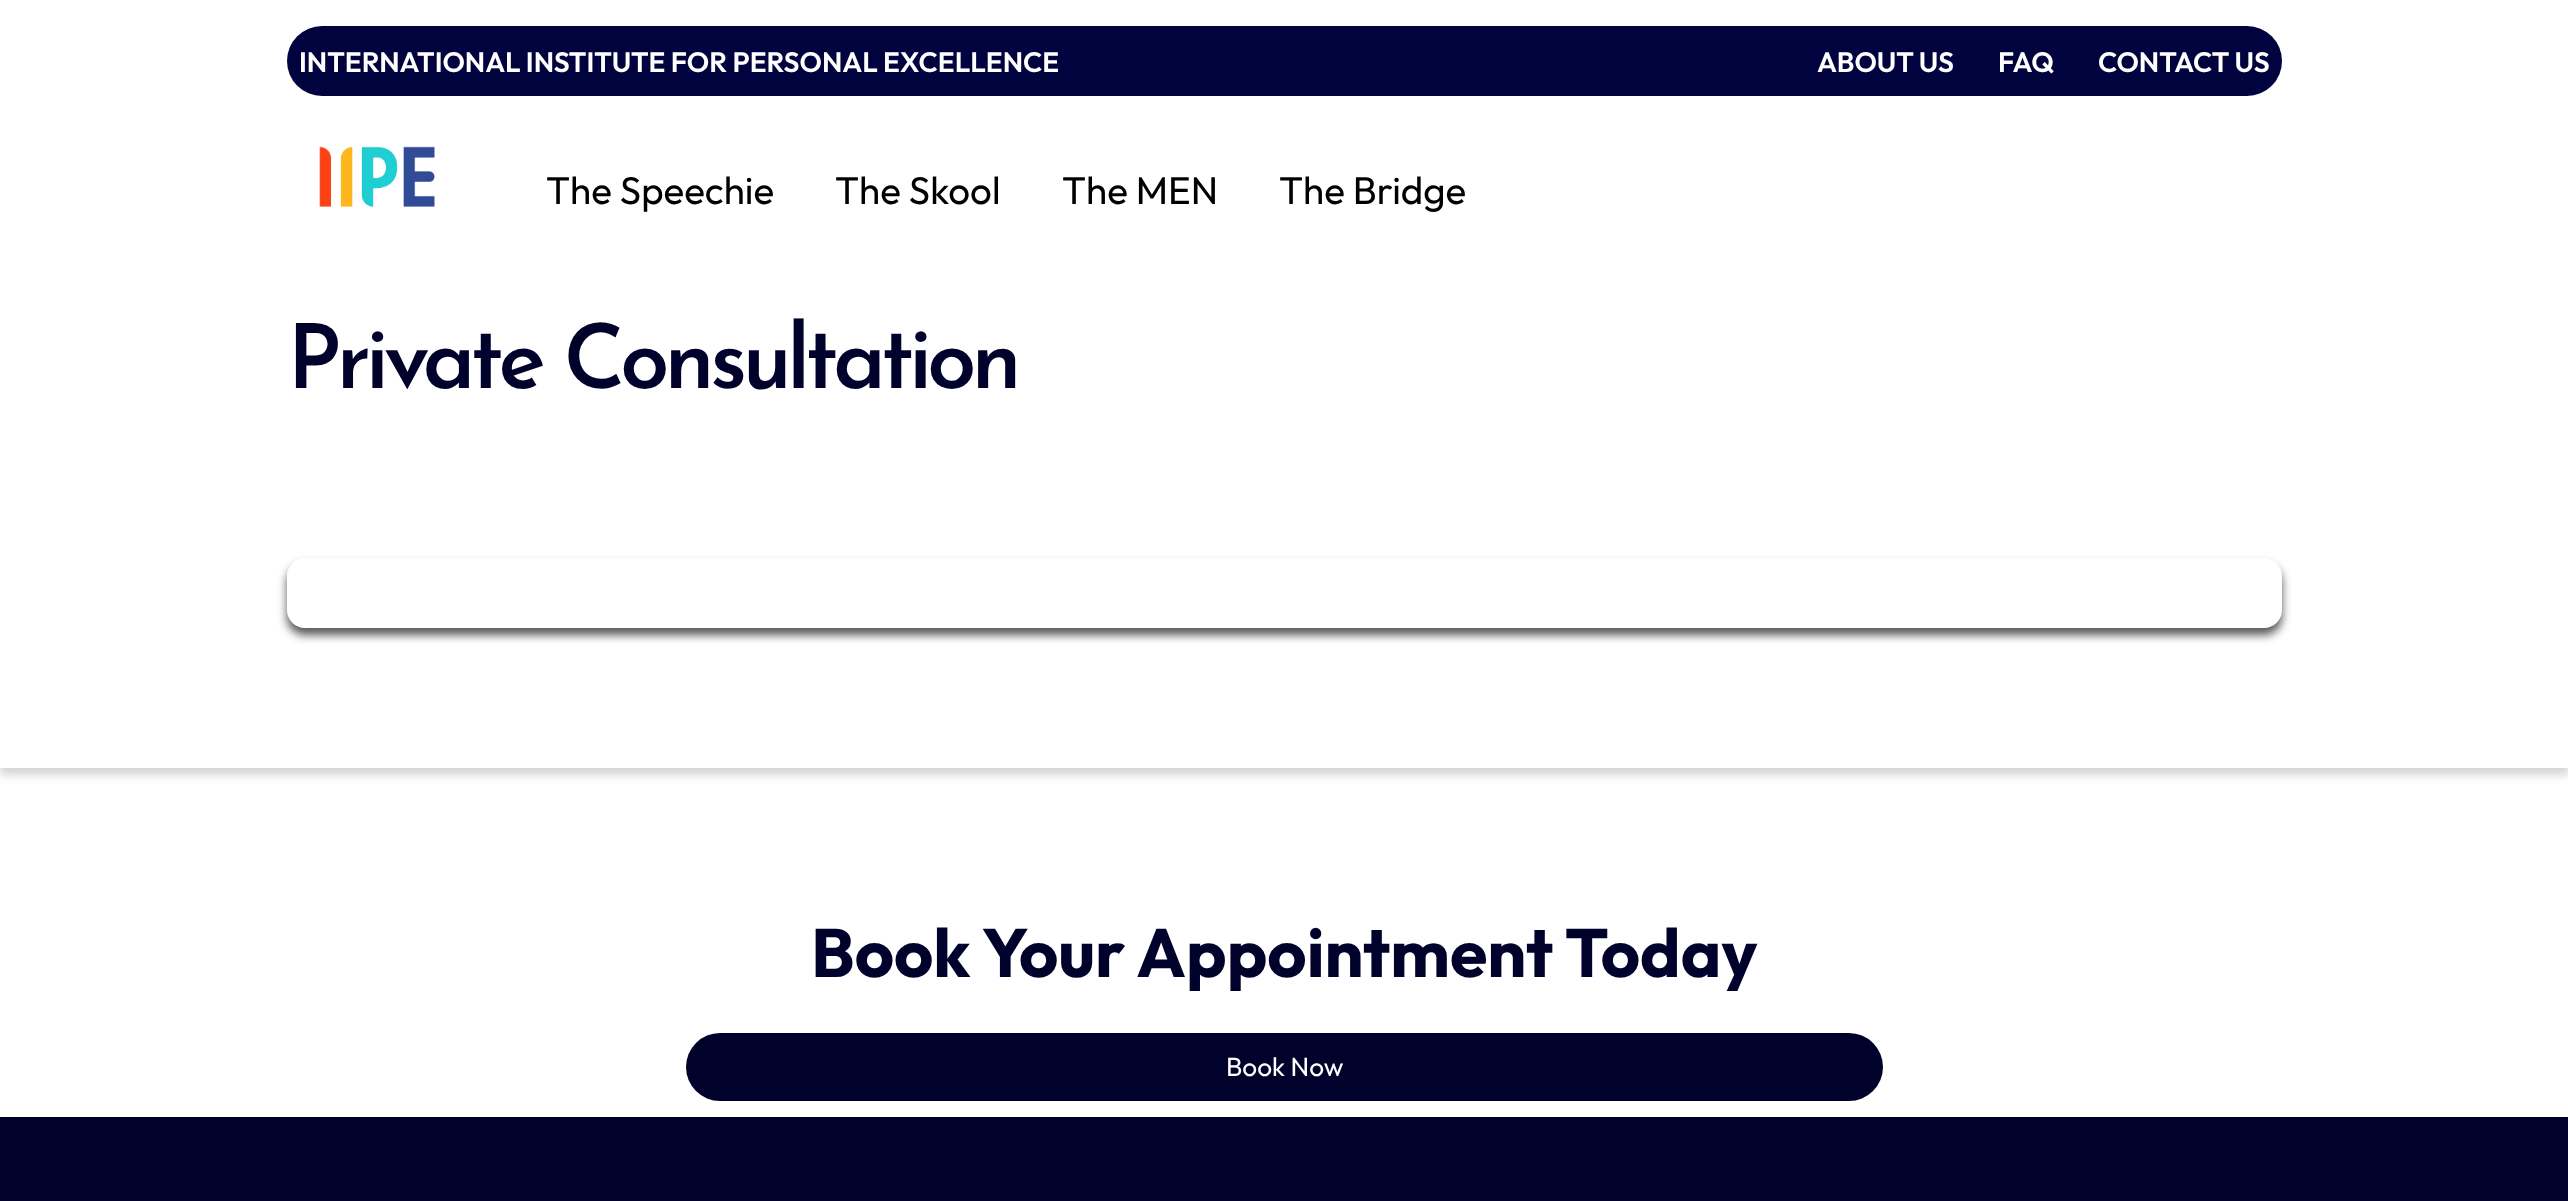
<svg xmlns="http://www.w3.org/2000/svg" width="2568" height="1201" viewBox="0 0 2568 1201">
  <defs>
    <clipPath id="clip1"><rect x="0" y="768" width="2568" height="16"/></clipPath>
    <filter id="blur1" x="-50%" y="-200%" width="200%" height="500%"><feGaussianBlur stdDeviation="5"/></filter>
    <clipPath id="clip2"><path d="M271 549H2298V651H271ZM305 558H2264C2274 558 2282 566 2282 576V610C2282 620 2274 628 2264 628H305C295 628 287 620 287 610V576C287 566 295 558 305 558Z" clip-rule="evenodd"/></clipPath>
  </defs>
  <rect width="100%" height="100%" fill="#ffffff"/>
  <rect x="0" y="1117" width="2568" height="84" fill="#00022b"/>
  <rect x="287" y="26" width="1995" height="70" rx="35" fill="#01033e"/>
  <text x="299" y="72" font-family="Outfit" font-size="28" font-weight="600" fill="#ffffff">INTERNATIONAL INSTITUTE FOR PERSONAL EXCELLENCE</text>
  <text x="1817" y="72" font-family="Outfit" font-size="28" font-weight="600" fill="#ffffff">ABOUT US</text>
  <text x="1998" y="72" font-family="Outfit" font-size="28" font-weight="600" fill="#ffffff">FAQ</text>
  <text x="2098" y="72" font-family="Outfit" font-size="28" font-weight="600" fill="#ffffff">CONTACT US</text>
  <image x="319" y="146" width="116" height="61" href="img1.png"/>
  <text x="546" y="204" font-family="Outfit" font-size="38.5" fill="#000000">The Speechie</text>
  <text x="835" y="204" font-family="Outfit" font-size="38.5" fill="#000000">The Skool</text>
  <text x="1062" y="204" font-family="Outfit" font-size="38.5" fill="#000000">The MEN</text>
  <text x="1279" y="204" font-family="Outfit" font-size="38.5" fill="#000000">The Bridge</text>
  <g clip-path="url(#clip1)">
    <rect x="0" y="425" width="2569" height="350" fill="#a8a8a8" fill-opacity="0.5" filter="url(#blur1)"/>
  </g>
  <rect x="6" y="417" width="2557" height="1" fill="#ffffff"/>
  <text x="287" y="388" font-family="Josefin Sans" font-size="89.25" font-weight="600" letter-spacing="-5.4" fill="#00022b">Private Consultation</text>
  <g clip-path="url(#clip2)">
    <rect x="287" y="565" width="1995" height="70" rx="18" fill="#000000" fill-opacity="0.66" filter="url(#blur1)"/>
  </g>
  <text x="811" y="977" font-family="Outfit" font-size="68.25" font-weight="bold" fill="#00022b">Book Your Appointment Today</text>
  <rect x="686" y="1033" width="1197" height="68" rx="34" fill="#00022b"/>
  <text x="1226" y="1076" font-family="Outfit" font-size="26.25" fill="#ffffff">Book Now</text>
</svg>
